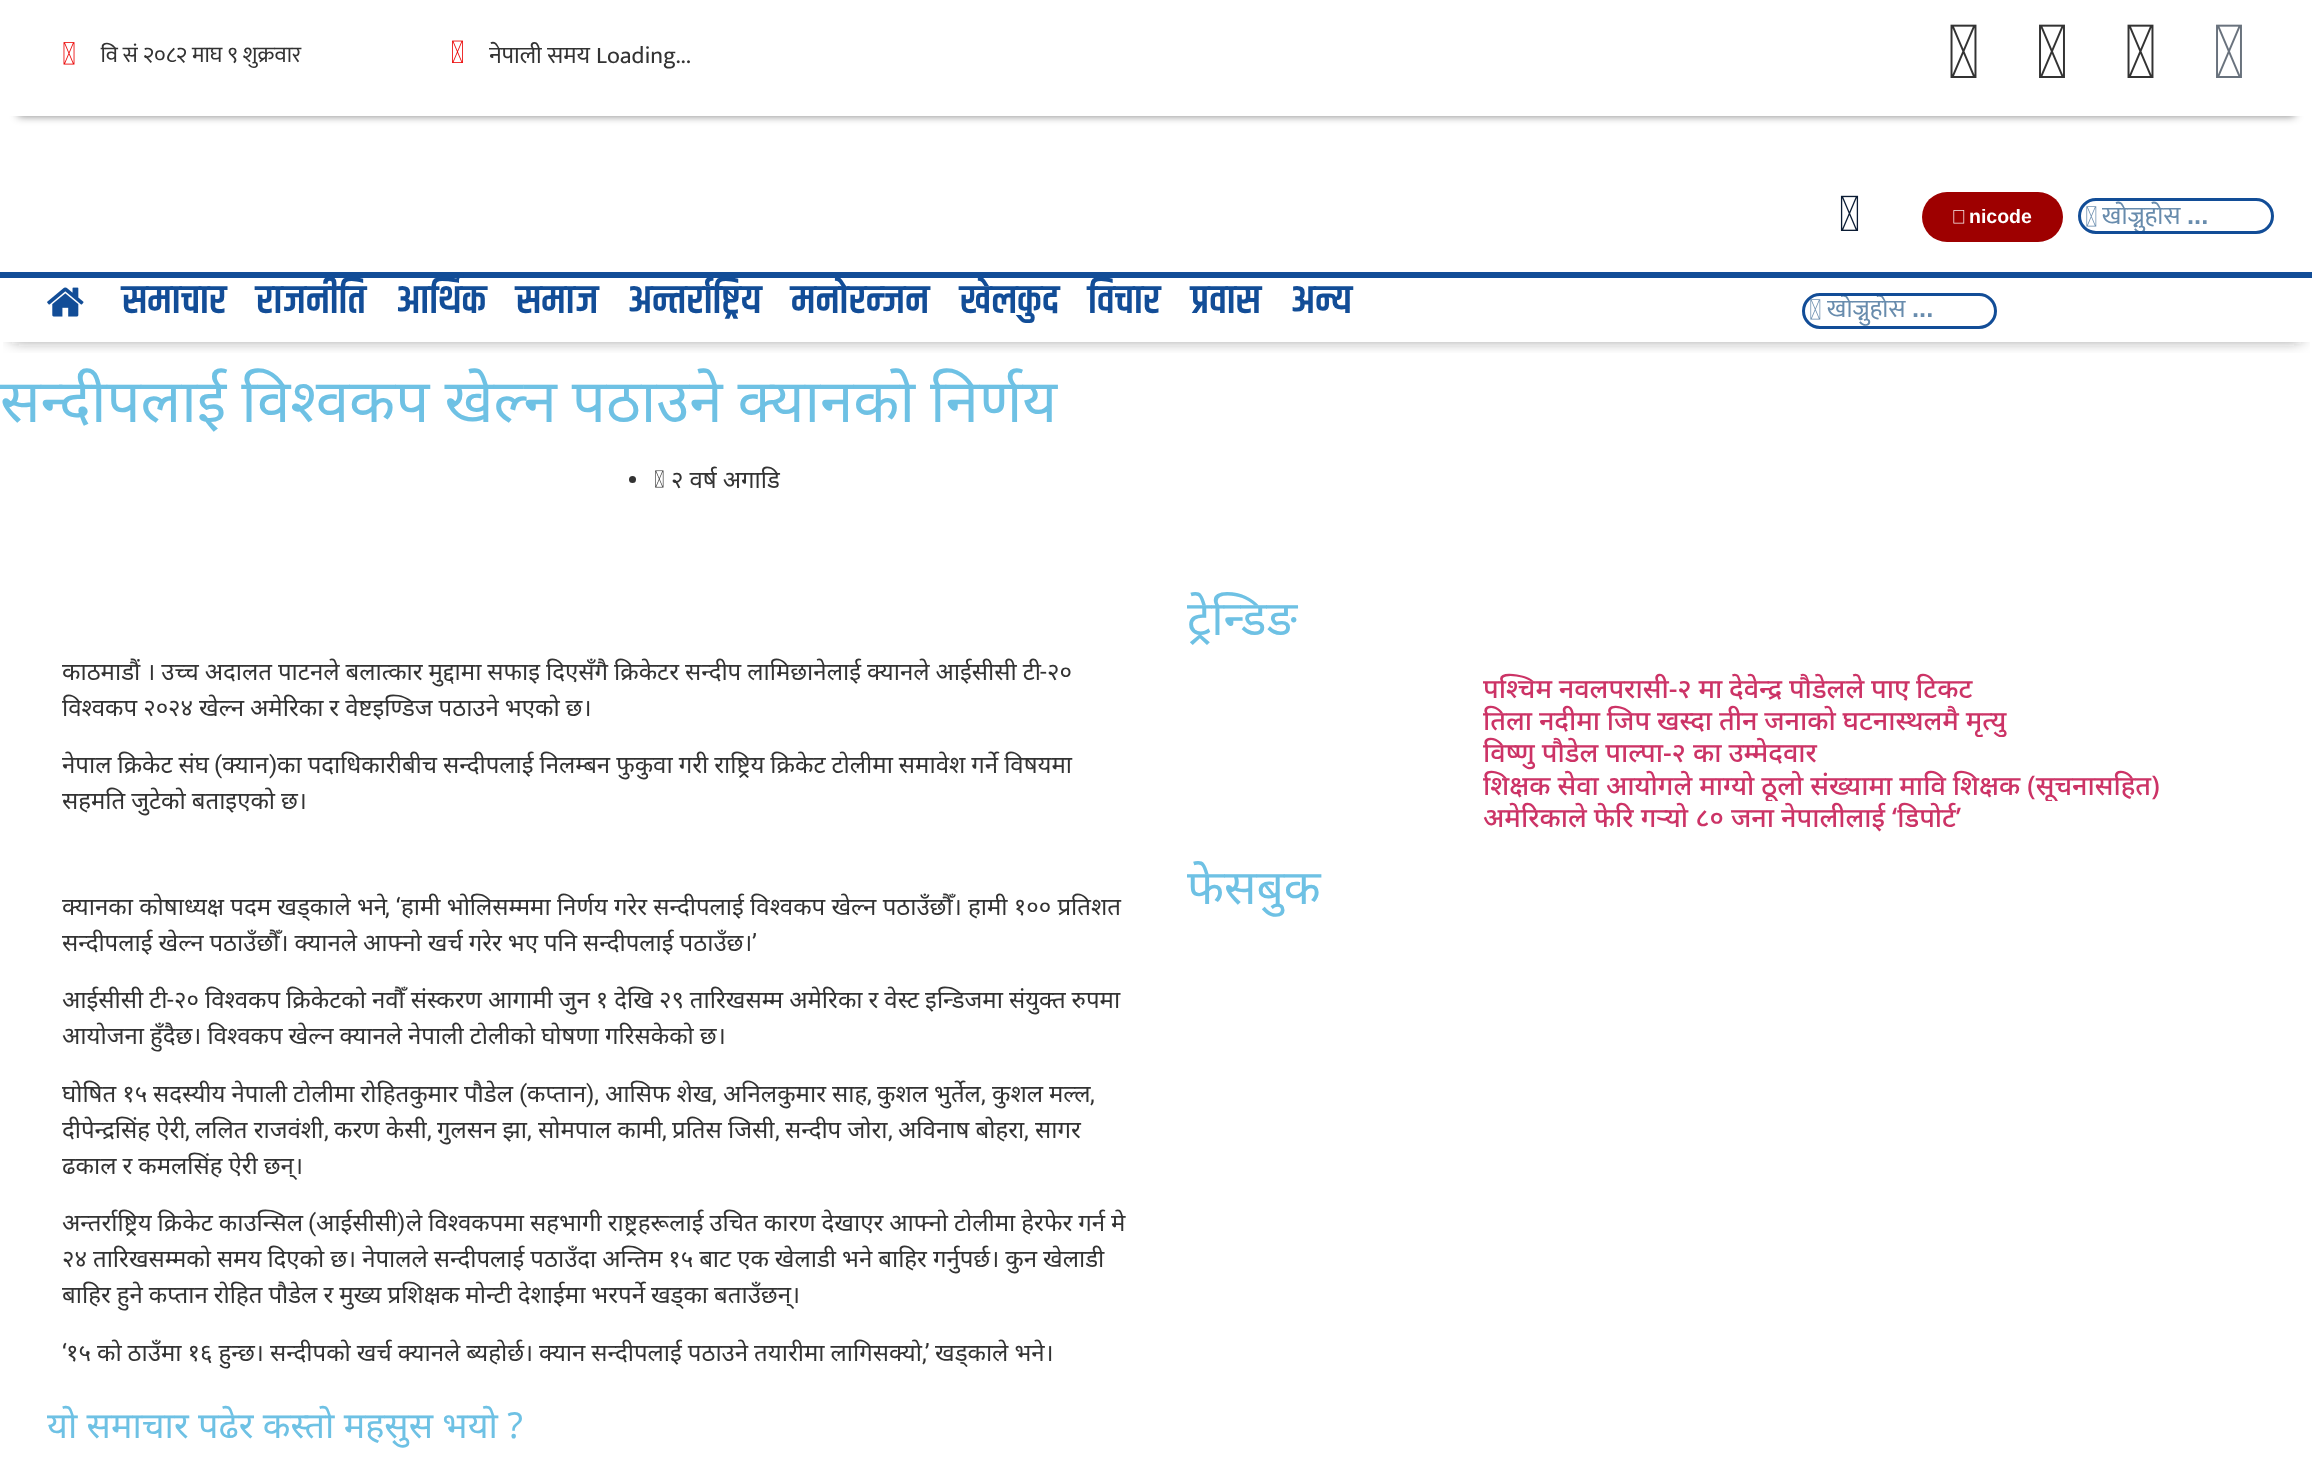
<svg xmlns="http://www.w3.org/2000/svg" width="2312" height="1458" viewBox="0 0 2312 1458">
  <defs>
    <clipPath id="clip1"><path d="M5 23H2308V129H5ZM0 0H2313V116H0Z" clip-rule="evenodd"/></clipPath>
    <filter id="blur1" x="-50%" y="-200%" width="200%" height="500%"><feGaussianBlur stdDeviation="4"/></filter>
    <clipPath id="clip2"><rect x="2097" y="201" width="174" height="30" rx="5"/></clipPath>
    <clipPath id="clip3"><rect x="2102" y="195" width="141" height="42"/></clipPath>
    <clipPath id="clip4"><rect x="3" y="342" width="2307" height="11"/></clipPath>
    <filter id="blur2" x="-50%" y="-200%" width="200%" height="500%"><feGaussianBlur stdDeviation="7.5"/></filter>
    <clipPath id="clip5"><rect x="1823" y="296" width="171" height="30" rx="5"/></clipPath>
    <clipPath id="clip6"><rect x="1827" y="290" width="138" height="42"/></clipPath>
    <clipPath id="clip7"><rect x="1187" y="705" width="1065" height="32"/></clipPath>
    <clipPath id="clip8"><rect x="1187" y="770" width="1065" height="31"/></clipPath>
  </defs>
  <rect width="100%" height="100%" fill="#ffffff"/>
  <g clip-path="url(#clip1)">
    <rect x="18" y="36" width="2277" height="80" fill="#000000" fill-opacity="0.5" filter="url(#blur1)"/>
  </g>
  <image x="63" y="42" width="12" height="23" href="img1.png"/>
  <image x="100" y="42" width="202" height="26" href="img2.png"/>
  <image x="452" y="40" width="11" height="23" href="img3.png"/>
  <image x="489" y="41" width="201" height="28" href="img4.png"/>
  <image x="1950" y="24" width="27" height="54" href="img5.png"/>
  <image x="2039" y="24" width="26" height="54" href="img6.png"/>
  <image x="2127" y="24" width="27" height="54" href="img5.png"/>
  <image x="2216" y="24" width="26" height="54" href="img7.png"/>
  <image x="1840" y="195" width="19" height="36" href="img8.png"/>
  <rect x="1922" y="192" width="141" height="50" rx="25" fill="#9e0000"/>
  <image x="1953" y="210" width="12" height="14" href="img9.png"/>
  <text x="1969" y="223" font-family="Liberation Sans" font-size="19.5" font-weight="bold" fill="#ffffff">nicode</text>
  <rect x="2079.5" y="199.5" width="193" height="33" rx="16.5" fill="none" stroke="#124d97" stroke-width="3"/>
  <image x="2086" y="206" width="11" height="21" href="img10.png"/>
  <g clip-path="url(#clip2)">
    <g clip-path="url(#clip3)">
      <text x="2102" y="224" font-family="Mukta" font-size="25.5" fill="#688cad">खोज्नुहोस</text>
    </g>
  </g>
  <text x="2187" y="224" font-family="Liberation Sans" font-size="25.5" font-weight="bold" fill="#688cad">...</text>
  <g clip-path="url(#clip4)">
    <rect x="12" y="293" width="2289" height="46" fill="#222223" fill-opacity="0.61" filter="url(#blur2)"/>
  </g>
  <rect x="0" y="272" width="2312" height="6" fill="#124d97"/>
  <image x="47" y="287" width="37" height="30" href="img11.png"/>
  <text x="122" y="313" font-family="Khand" font-size="40.5" font-weight="600" fill="#124d97">समाचार</text>
  <text x="256" y="313" font-family="Khand" font-size="40.5" font-weight="600" fill="#124d97">राजनीति</text>
  <text x="396" y="313" font-family="Khand" font-size="40.5" font-weight="600" fill="#124d97">आर्थिक</text>
  <text x="516" y="313" font-family="Khand" font-size="40.5" font-weight="600" fill="#124d97">समाज</text>
  <text x="628" y="313" font-family="Khand" font-size="40.5" font-weight="600" fill="#124d97">अन्तर्राष्ट्रिय</text>
  <text x="791" y="313" font-family="Khand" font-size="40.5" font-weight="600" fill="#124d97">मनोरन्जन</text>
  <text x="960" y="313" font-family="Khand" font-size="40.5" font-weight="600" fill="#124d97">खेलकुद</text>
  <text x="1088" y="313" font-family="Khand" font-size="40.5" font-weight="600" fill="#124d97">विचार</text>
  <text x="1191" y="313" font-family="Khand" font-size="40.5" font-weight="600" fill="#124d97">प्रवास</text>
  <text x="1291" y="313" font-family="Khand" font-size="40.5" font-weight="600" fill="#124d97">अन्य</text>
  <rect x="1803.5" y="294.5" width="192" height="33" rx="16.5" fill="none" stroke="#124d97" stroke-width="3"/>
  <image x="1810" y="299" width="11" height="21" href="img12.png"/>
  <g clip-path="url(#clip5)">
    <g clip-path="url(#clip6)">
      <text x="1827" y="317" font-family="Mukta" font-size="25.5" fill="#688cad">खोज्नुहोस</text>
    </g>
  </g>
  <text x="1912" y="317" font-family="Liberation Sans" font-size="25.5" font-weight="bold" fill="#688cad">...</text>
  <text x="0" y="422" word-spacing="-0.5" font-family="Noto Sans" font-size="60" fill="#6ec1e4">सन्दीपलाई विश्वकप खेल्न पठाउने क्यानको निर्णय</text>
  <circle cx="632.5" cy="479.5" r="3.5" fill="#333333"/>
  <image x="655" y="470" width="9" height="18" href="img13.png"/>
  <text x="671" y="488" word-spacing="-0.25" font-family="Noto Sans" font-size="24" fill="#333333">२ वर्ष अगाडि</text>
  <text x="62" y="680" word-spacing="-0.25" font-family="Noto Sans" font-size="24" fill="#333333">काठमाडौं । उच्च अदालत पाटनले बलात्कार मुद्दामा सफाइ दिएसँगै क्रिकेटर सन्दीप लामिछानेलाई क्यानले आईसीसी टी</text>
  <text x="1040" y="680" font-family="Roboto" font-size="24" fill="#333333">-</text>
  <text x="1047" y="680" font-family="Noto Sans" font-size="24" fill="#333333">२०</text>
  <text x="62" y="716" word-spacing="-0.25" font-family="Noto Sans" font-size="24" fill="#333333">विश्वकप २०२४ खेल्न अमेरिका र वेष्टइण्डिज पठाउने भएको छ।</text>
  <text x="62" y="773" word-spacing="-0.25" font-family="Noto Sans" font-size="24" fill="#333333">नेपाल क्रिकेट संघ</text>
  <text x="214" y="773" font-family="Roboto" font-size="24" fill="#333333">(</text>
  <text x="222" y="773" font-family="Noto Sans" font-size="24" fill="#333333">क्यान</text>
  <text x="269" y="773" font-family="Roboto" font-size="24" fill="#333333">)</text>
  <text x="277" y="773" word-spacing="-0.25" font-family="Noto Sans" font-size="24" fill="#333333">का पदाधिकारीबीच सन्दीपलाई निलम्बन फुकुवा गरी राष्ट्रिय क्रिकेट टोलीमा समावेश गर्ने विषयमा</text>
  <text x="62" y="809" word-spacing="-0.25" font-family="Noto Sans" font-size="24" fill="#333333">सहमति जुटेको बताइएको छ।</text>
  <text x="62" y="915" font-family="Noto Sans" font-size="24" fill="#333333">क्यानका कोषाध्यक्ष पदम खड्काले भने</text>
  <text x="385" y="915" font-family="Roboto" font-size="24" fill="#333333">, ‘</text>
  <text x="401" y="915" font-family="Noto Sans" font-size="24" fill="#333333">हामी भोलिसम्ममा निर्णय गरेर सन्दीपलाई विश्वकप खेल्न पठाउँछौँ। हामी १०० प्रतिशत</text>
  <text x="62" y="951" word-spacing="-0.25" font-family="Noto Sans" font-size="24" fill="#333333">सन्दीपलाई खेल्न पठाउँछौँ। क्यानले आफ्नो खर्च गरेर भए पनि सन्दीपलाई पठाउँछ।</text>
  <text x="752" y="951" font-family="Roboto" font-size="24" fill="#333333">’</text>
  <text x="62" y="1008" word-spacing="-0.25" font-family="Noto Sans" font-size="24" fill="#333333">आईसीसी टी</text>
  <text x="167" y="1008" font-family="Roboto" font-size="24" fill="#333333">-</text>
  <text x="174" y="1008" word-spacing="-0.25" font-family="Noto Sans" font-size="24" fill="#333333">२० विश्वकप क्रिकेटको नवौँ संस्करण आगामी जुन १ देखि २९ तारिखसम्म अमेरिका र वेस्ट इन्डिजमा संयुक्त रुपमा</text>
  <text x="62" y="1044" word-spacing="-0.25" font-family="Noto Sans" font-size="24" fill="#333333">आयोजना हुँदैछ। विश्वकप खेल्न क्यानले नेपाली टोलीको घोषणा गरिसकेको छ।</text>
  <text x="62" y="1102" word-spacing="-0.25" font-family="Noto Sans" font-size="24" fill="#333333">घोषित १५ सदस्यीय नेपाली टोलीमा रोहितकुमार पौडेल</text>
  <text x="519" y="1102" font-family="Roboto" font-size="24" fill="#333333">(</text>
  <text x="527" y="1102" font-family="Noto Sans" font-size="24" fill="#333333">कप्तान</text>
  <text x="586" y="1102" font-family="Roboto" font-size="24" fill="#333333">),</text>
  <text x="605" y="1102" word-spacing="-0.25" font-family="Noto Sans" font-size="24" fill="#333333">आसिफ शेख</text>
  <text x="712" y="1102" font-family="Roboto" font-size="24" fill="#333333">,</text>
  <text x="723" y="1102" word-spacing="-0.25" font-family="Noto Sans" font-size="24" fill="#333333">अनिलकुमार साह</text>
  <text x="867" y="1102" font-family="Roboto" font-size="24" fill="#333333">,</text>
  <text x="877" y="1102" word-spacing="-0.25" font-family="Noto Sans" font-size="24" fill="#333333">कुशल भुर्तेल</text>
  <text x="981" y="1102" font-family="Roboto" font-size="24" fill="#333333">,</text>
  <text x="992" y="1102" word-spacing="-0.25" font-family="Noto Sans" font-size="24" fill="#333333">कुशल मल्ल</text>
  <text x="1090" y="1102" font-family="Roboto" font-size="24" fill="#333333">,</text>
  <text x="62" y="1138" font-family="Noto Sans" font-size="24" fill="#333333">दीपेन्द्रसिंह ऐरी</text>
  <text x="185" y="1138" font-family="Roboto" font-size="24" fill="#333333">,</text>
  <text x="195" y="1138" font-family="Noto Sans" font-size="24" fill="#333333">ललित राजवंशी</text>
  <text x="324" y="1138" font-family="Roboto" font-size="24" fill="#333333">,</text>
  <text x="334" y="1138" font-family="Noto Sans" font-size="24" fill="#333333">करण केसी</text>
  <text x="427" y="1138" font-family="Roboto" font-size="24" fill="#333333">,</text>
  <text x="437" y="1138" font-family="Noto Sans" font-size="24" fill="#333333">गुलसन झा</text>
  <text x="538" y="1138" font-family="Noto Sans" font-size="24" fill="#333333">सोमपाल कामी</text>
  <text x="672" y="1138" font-family="Noto Sans" font-size="24" fill="#333333">प्रतिस जिसी</text>
  <text x="785" y="1138" font-family="Noto Sans" font-size="24" fill="#333333">सन्दीप जोरा</text>
  <text x="898" y="1138" font-family="Noto Sans" font-size="24" fill="#333333">अविनाष बोहरा</text>
  <text x="1035" y="1138" font-family="Noto Sans" font-size="24" fill="#333333">सागर</text>
  <text x="527" y="1138" font-family="Roboto" font-size="24" fill="#333333">,</text>
  <text x="662" y="1138" font-family="Roboto" font-size="24" fill="#333333">,</text>
  <text x="775" y="1138" font-family="Roboto" font-size="24" fill="#333333">,</text>
  <text x="888" y="1138" font-family="Roboto" font-size="24" fill="#333333">,</text>
  <text x="1024" y="1138" font-family="Roboto" font-size="24" fill="#333333">,</text>
  <text x="62" y="1174" word-spacing="-0.25" font-family="Noto Sans" font-size="24" fill="#333333">ढकाल र कमलसिंह ऐरी छन्।</text>
  <text x="62" y="1231" word-spacing="-0.25" font-family="Noto Sans" font-size="24" fill="#333333">अन्तर्राष्ट्रिय क्रिकेट काउन्सिल</text>
  <text x="308" y="1231" font-family="Roboto" font-size="24" fill="#333333">(</text>
  <text x="316" y="1231" font-family="Noto Sans" font-size="24" fill="#333333">आईसीसी</text>
  <text x="397" y="1231" font-family="Roboto" font-size="24" fill="#333333">)</text>
  <text x="406" y="1231" word-spacing="-0.25" font-family="Noto Sans" font-size="24" fill="#333333">ले विश्वकपमा सहभागी राष्ट्रहरूलाई उचित कारण देखाएर आफ्नो टोलीमा हेरफेर गर्न मे</text>
  <text x="62" y="1267" word-spacing="-0.25" font-family="Noto Sans" font-size="24" fill="#333333">२४ तारिखसम्मको समय दिएको छ। नेपालले सन्दीपलाई पठाउँदा अन्तिम १५ बाट एक खेलाडी भने बाहिर गर्नुपर्छ। कुन खेलाडी</text>
  <text x="62" y="1303" word-spacing="-0.25" font-family="Noto Sans" font-size="24" fill="#333333">बाहिर हुने कप्तान रोहित पौडेल र मुख्य प्रशिक्षक मोन्टी देशाईमा भरपर्ने खड्का बताउँछन्।</text>
  <text x="62" y="1361" font-family="Roboto" font-size="24" fill="#333333">‘</text>
  <text x="66" y="1361" word-spacing="-0.25" font-family="Noto Sans" font-size="24" fill="#333333">१५ को ठाउँमा १६ हुन्छ। सन्दीपको खर्च क्यानले ब्यहोर्छ। क्यान सन्दीपलाई पठाउने तयारीमा लागिसक्यो</text>
  <text x="922" y="1361" font-family="Roboto" font-size="24" fill="#333333">,’</text>
  <text x="935" y="1361" word-spacing="-0.25" font-family="Noto Sans" font-size="24" fill="#333333">खड्काले भने।</text>
  <text x="47" y="1438" font-family="Noto Sans" font-size="36" fill="#6ec1e4">यो समाचार पढेर कस्तो महसुस भयो ?</text>
  <text x="1187" y="635" font-family="Noto Sans" font-size="48" fill="#6ec1e4">ट्रेन्डिङ</text>
  <text x="1483" y="698" word-spacing="-0.25" font-family="Noto Sans" font-size="27" font-weight="500" fill="#cc3366">पश्चिम नवलपरासी-२ मा देवेन्द्र पौडेलले पाए टिकट</text>
  <g clip-path="url(#clip7)">
    <text x="1483" y="730" word-spacing="-0.25" font-family="Noto Sans" font-size="27" font-weight="500" fill="#cc3366">तिला नदीमा जिप खस्दा तीन जनाको घटनास्थलमै मृत्यु</text>
  </g>
  <text x="1483" y="762" font-family="Noto Sans" font-size="27" font-weight="500" fill="#cc3366">विष्णु पौडेल पाल्पा-२ का उम्मेदवार</text>
  <g clip-path="url(#clip8)">
    <text x="1483" y="795" font-family="Noto Sans" font-size="27" font-weight="500" fill="#cc3366">शिक्षक सेवा आयोगले माग्यो ठूलो संख्यामा मावि शिक्षक (सूचनासहित)</text>
  </g>
  <text x="1483" y="827" font-family="Noto Sans" font-size="27" font-weight="500" fill="#cc3366">अमेरिकाले फेरि गर्‍यो ८० जना नेपालीलाई ‘डिपोर्ट’</text>
  <text x="1187" y="904" font-family="Noto Sans" font-size="48" fill="#6ec1e4">फेसबुक</text>
</svg>
